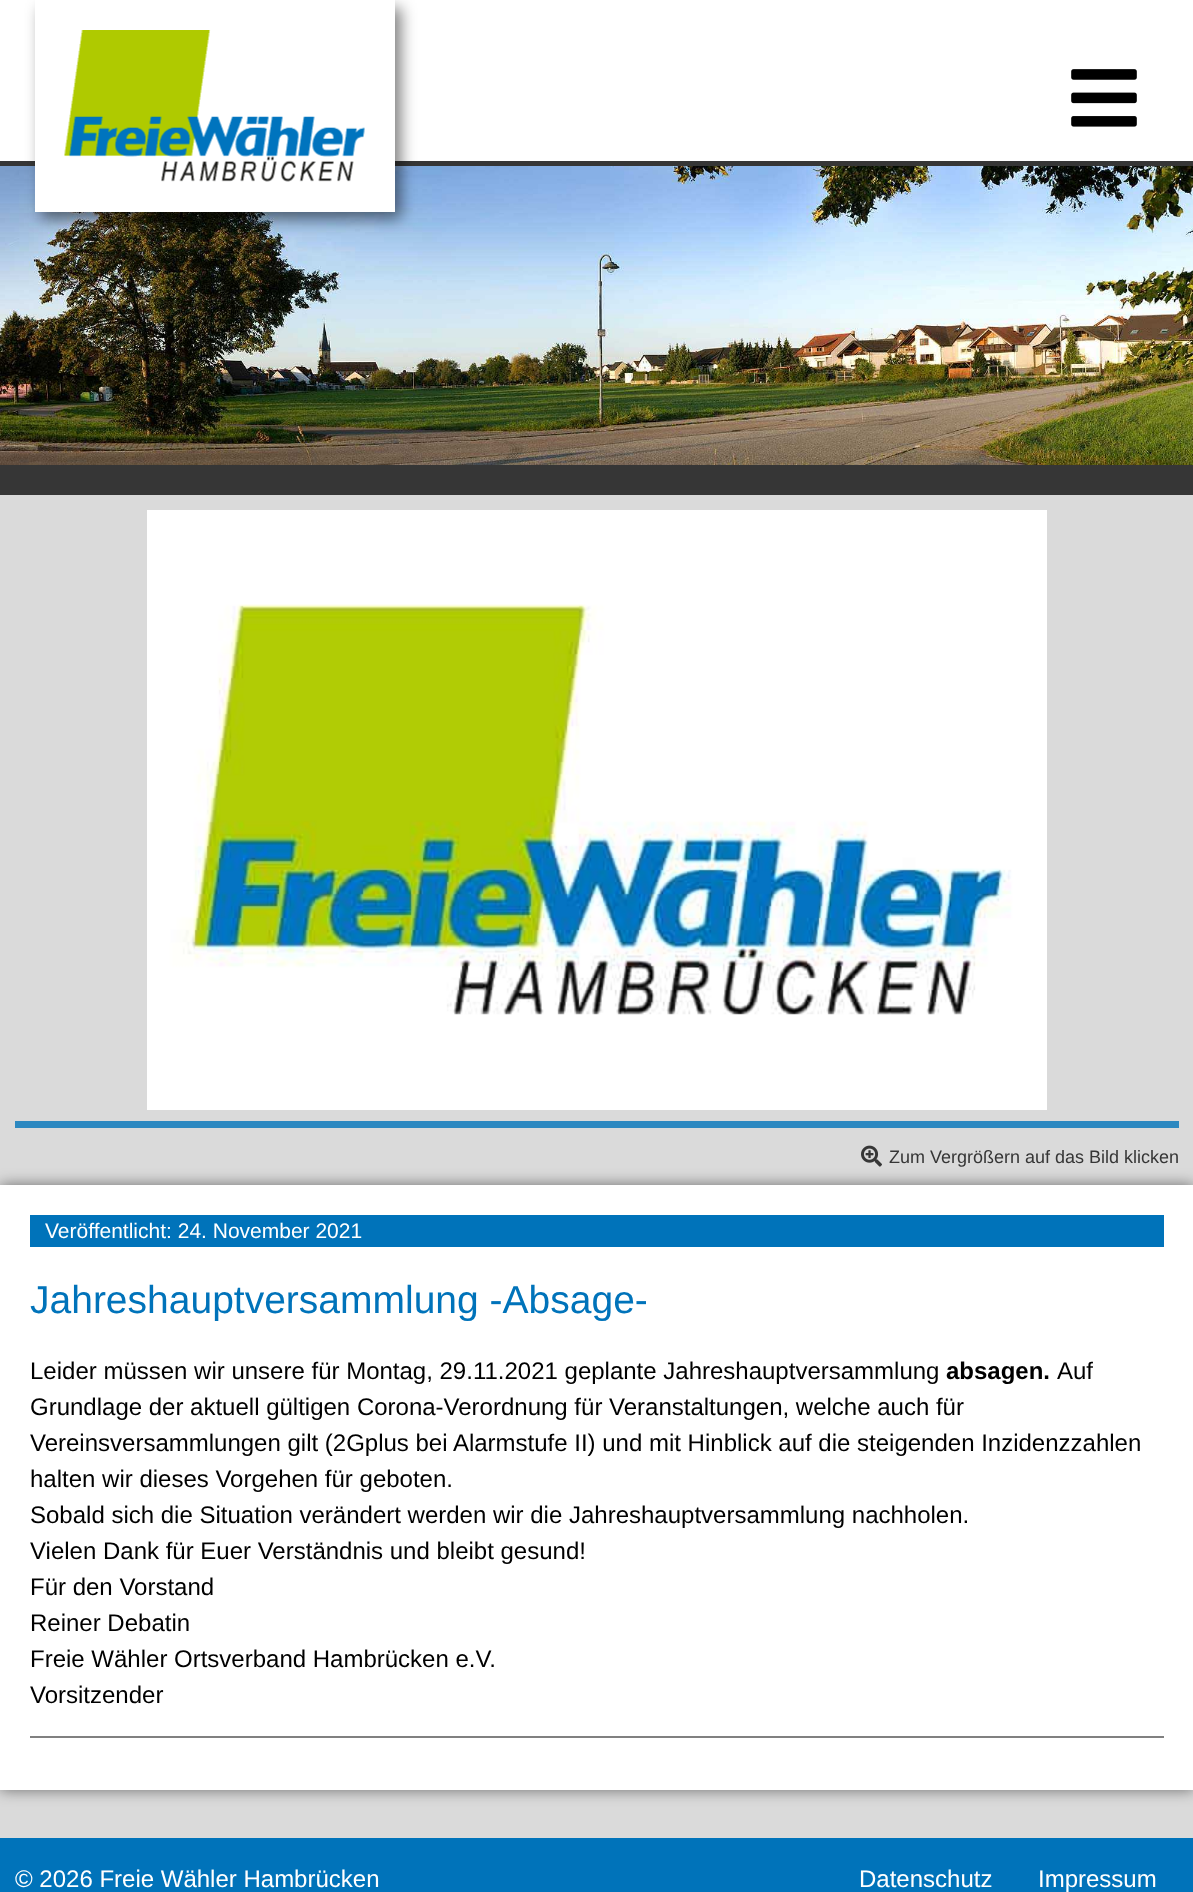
<svg xmlns="http://www.w3.org/2000/svg" width="1193" height="1892" viewBox="0 0 1193 1892">
  <defs>
    <filter id="blur1" x="-50%" y="-200%" width="200%" height="500%"><feGaussianBlur stdDeviation="7.5"/></filter>
  </defs>
  <rect width="100%" height="100%" fill="#dadada"/>
  <rect x="0" y="0" width="1193" height="161" fill="#ffffff"/>
  <rect x="0" y="161" width="1193" height="5" fill="#363636"/>
  <image x="0" y="166" width="1193" height="299" href="img3.png"/>
  <rect x="41" y="8" width="360" height="211" fill="#000000" fill-opacity="0.5" filter="url(#blur1)"/>
  <rect x="35" y="0" width="360" height="212" fill="#ffffff"/>
  <image x="64" y="30" width="301" height="152" href="img1.png"/>
  <image x="1071" y="69" width="66" height="58" href="img2.png"/>
  <rect x="0" y="465" width="1193" height="30" fill="#363636"/>
  <image x="147" y="510" width="900" height="600" href="img4.png"/>
  <rect x="15" y="1121" width="1164" height="7" fill="#2c88c0"/>
  <image x="861" y="1145" width="21" height="22" href="img5.png"/>
  <text x="889" y="1163" font-family="Liberation Sans" font-size="18" fill="#363636">Zum Vergrößern auf das Bild klicken</text>
  <rect x="0" y="1185" width="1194" height="605" fill="#000000" fill-opacity="0.5" filter="url(#blur1)"/>
  <rect x="0" y="1185" width="1193" height="605" fill="#ffffff"/>
  <rect x="30" y="1215" width="1134" height="32" fill="#0073ba"/>
  <text x="45" y="1238" font-family="Liberation Sans" font-size="21" fill="#ffffff">Veröffentlicht: 24. November 2021</text>
  <text x="30" y="1313" font-family="Liberation Sans" font-size="39" fill="#0073ba">Jahreshauptversammlung -Absage-</text>
  <text x="30" y="1379" font-family="Liberation Sans" font-size="24" fill="#000000">Leider müssen wir unsere für Montag, 29.11.2021 geplante Jahreshauptversammlung</text>
  <text x="946" y="1379" font-family="Liberation Sans" font-size="24" font-weight="bold" fill="#000000">absagen.</text>
  <text x="1057" y="1379" font-family="Liberation Sans" font-size="24" fill="#000000">Auf</text>
  <text x="30" y="1415" font-family="Liberation Sans" font-size="24" fill="#000000">Grundlage der aktuell gültigen Corona-Verordnung für Veranstaltungen, welche auch für</text>
  <text x="30" y="1451" font-family="Liberation Sans" font-size="24" fill="#000000">Vereinsversammlungen gilt (2Gplus bei Alarmstufe II) und mit Hinblick auf die steigenden Inzidenzzahlen</text>
  <text x="30" y="1487" font-family="Liberation Sans" font-size="24" fill="#000000">halten wir dieses Vorgehen für geboten.</text>
  <text x="30" y="1523" font-family="Liberation Sans" font-size="24" fill="#000000">Sobald sich die Situation verändert werden wir die Jahreshauptversammlung nachholen.</text>
  <text x="30" y="1559" font-family="Liberation Sans" font-size="24" fill="#000000">Vielen Dank für Euer Verständnis und bleibt gesund!</text>
  <text x="30" y="1595" font-family="Liberation Sans" font-size="24" fill="#000000">Für den Vorstand</text>
  <text x="30" y="1631" font-family="Liberation Sans" font-size="24" fill="#000000">Reiner Debatin</text>
  <text x="30" y="1667" font-family="Liberation Sans" font-size="24" fill="#000000">Freie Wähler Ortsverband Hambrücken e.V.</text>
  <text x="30" y="1703" font-family="Liberation Sans" font-size="24" fill="#000000">Vorsitzender</text>
  <rect x="30" y="1736" width="1134" height="2" fill="#808080"/>
  <rect x="0" y="1838" width="1193" height="54" fill="#0073ba"/>
  <text x="15" y="1887" font-family="Liberation Sans" font-size="24" fill="#ffffff">© 2026 Freie Wähler Hambrücken</text>
  <text x="859" y="1887" font-family="Liberation Sans" font-size="24" fill="#ffffff">Datenschutz</text>
  <text x="1038" y="1887" font-family="Liberation Sans" font-size="24" fill="#ffffff">Impressum</text>
</svg>
